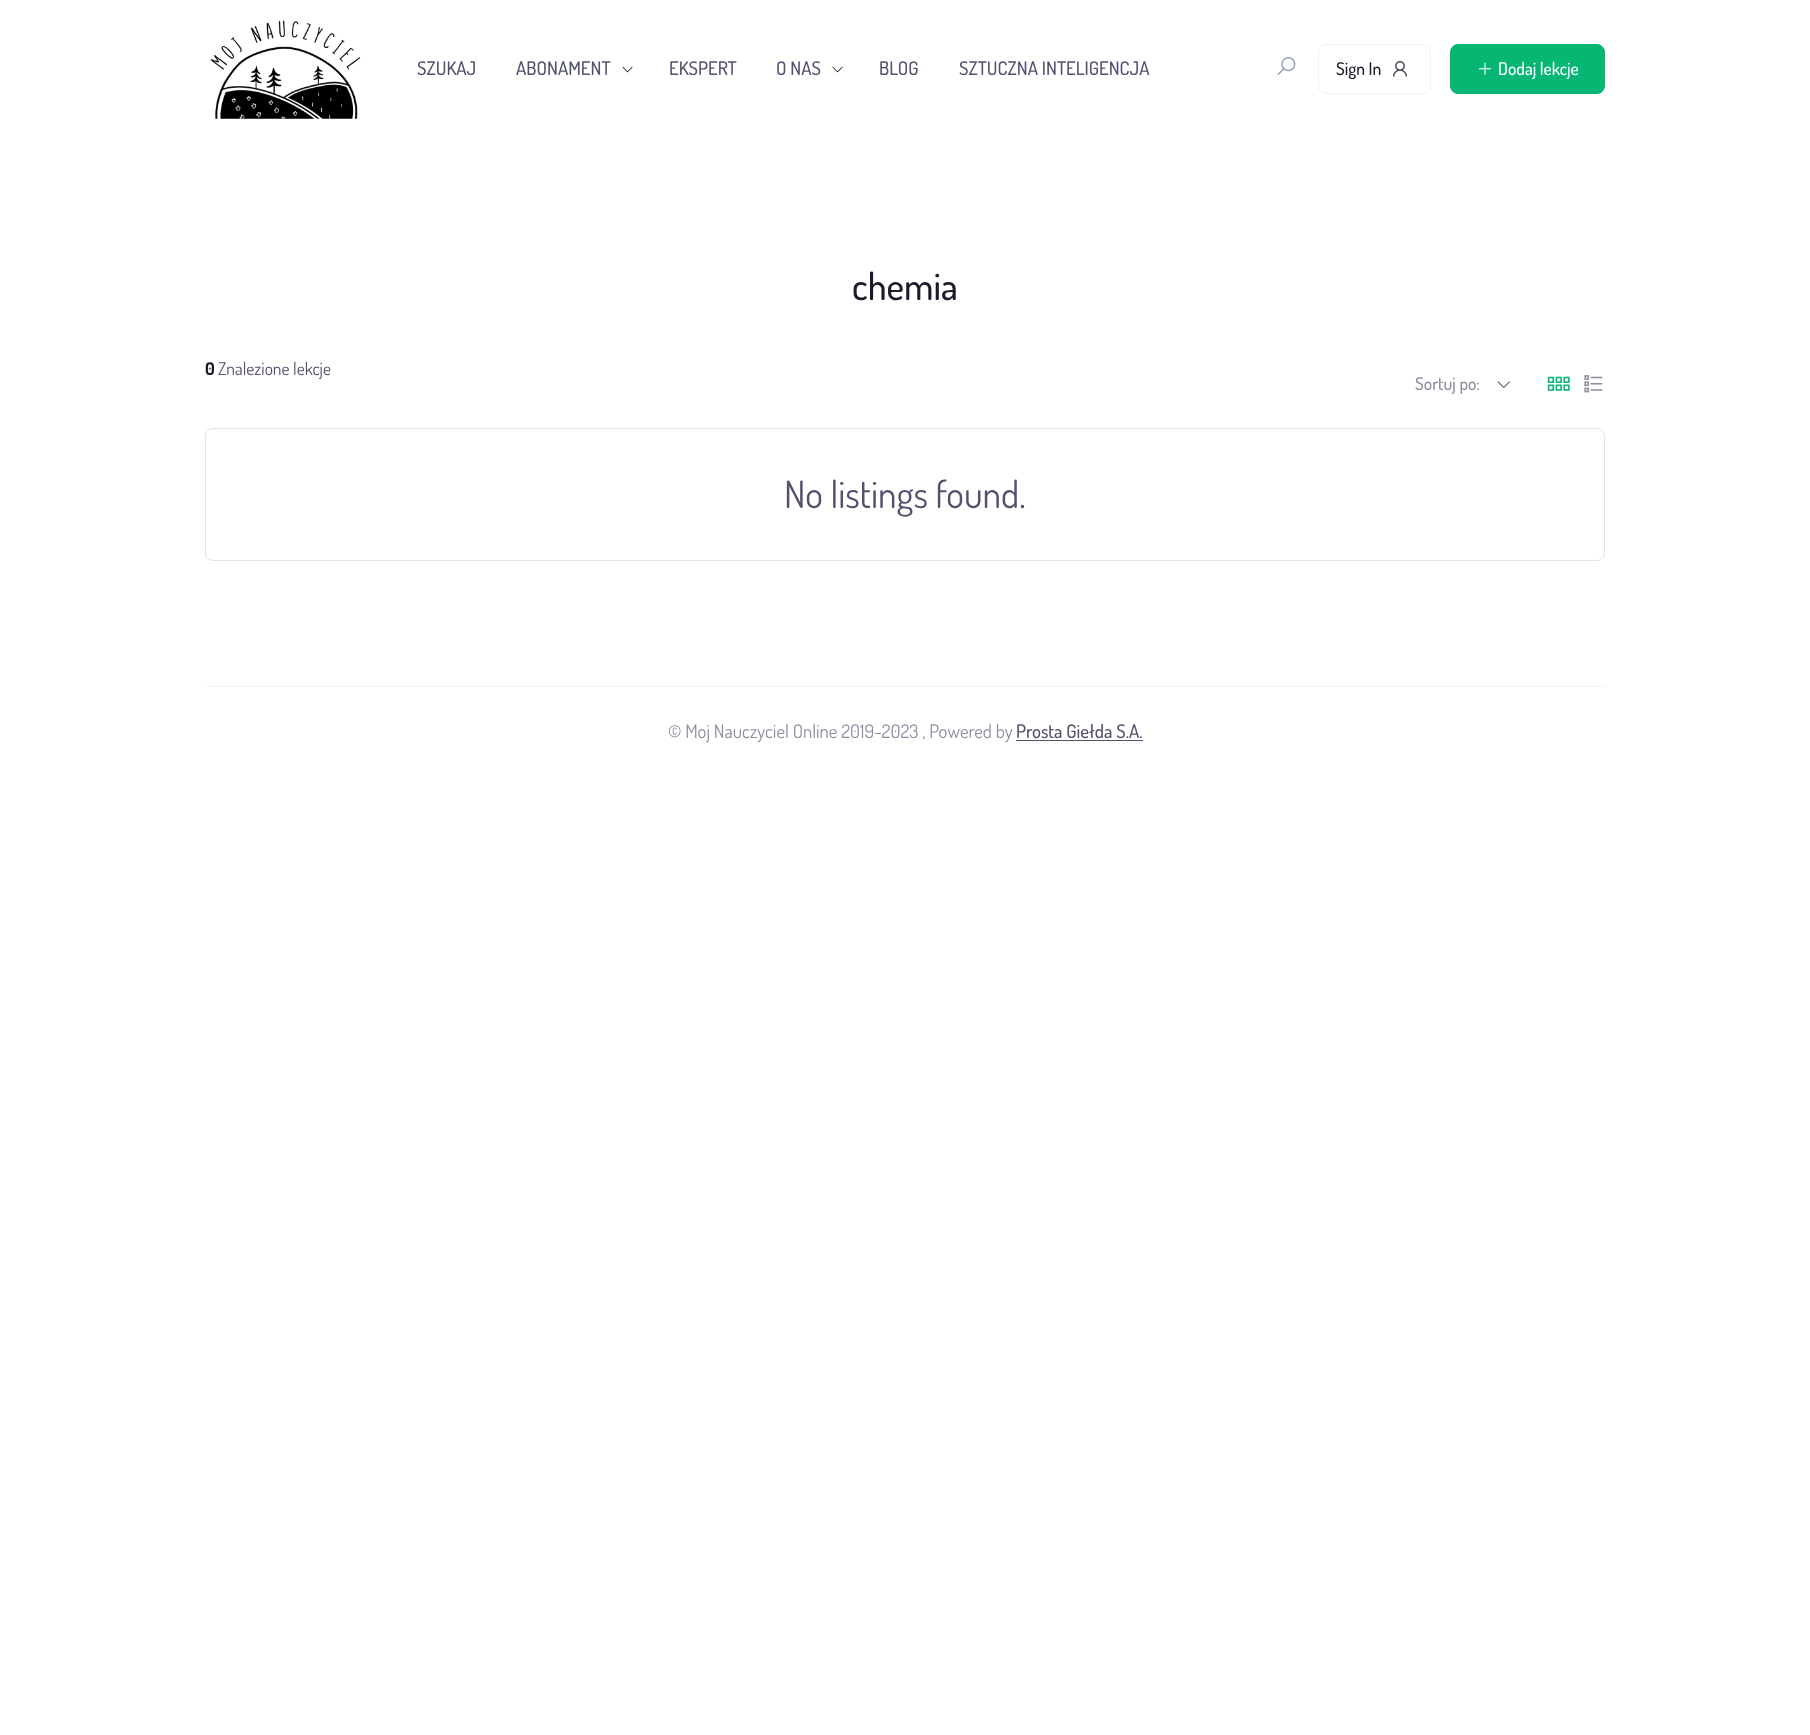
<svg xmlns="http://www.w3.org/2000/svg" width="1810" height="1735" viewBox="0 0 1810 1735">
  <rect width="100%" height="100%" fill="#ffffff"/>
  <image x="210" y="20" width="151" height="99" href="img1.png"/>
  <text x="417" y="75" font-family="Dosis" font-size="18.75" font-weight="500" fill="#51526e">SZUKAJ</text>
  <text x="516" y="75" font-family="Dosis" font-size="18.75" font-weight="500" fill="#51526e">ABONAMENT</text>
  <image x="622" y="66" width="11" height="7" href="img2.png"/>
  <text x="669" y="75" font-family="Dosis" font-size="18.75" font-weight="500" fill="#51526e">EKSPERT</text>
  <text x="776" y="75" font-family="Dosis" font-size="18.75" font-weight="500" fill="#51526e">O NAS</text>
  <image x="832" y="66" width="11" height="7" href="img2.png"/>
  <text x="879" y="75" font-family="Dosis" font-size="18.75" font-weight="500" fill="#51526e">BLOG</text>
  <text x="959" y="75" font-family="Dosis" font-size="18.75" font-weight="500" fill="#51526e">SZTUCZNA INTELIGENCJA</text>
  <image x="1277" y="57" width="19" height="19" href="img3.png"/>
  <rect x="1318.5" y="44.5" width="112" height="49" rx="7.5" fill="none" stroke="#eff1f6"/>
  <text x="1336" y="75" font-family="Dosis" font-size="17.5" font-weight="500" fill="#1a1b29">Sign In</text>
  <image x="1393" y="61" width="14" height="16" href="img4.png"/>
  <rect x="1450.5" y="44.5" width="154" height="49" rx="7.5" fill="#05b772" stroke="#05b772"/>
  <image x="1479" y="62" width="12" height="13" href="img5.png"/>
  <text x="1498" y="75" font-family="Dosis" font-size="17.5" font-weight="500" fill="#ffffff">Dodaj lekcje</text>
  <text x="852" y="300" font-family="Dosis" font-size="37.5" font-weight="500" fill="#1a1b29">chemia</text>
  <text x="205" y="375" font-family="Dosis" font-size="17.5" font-weight="bold" fill="#1a1b29">0</text>
  <text x="218" y="375" font-family="Dosis" font-size="17.5" fill="#51526e">Znalezione lekcje</text>
  <text x="1415" y="390" font-family="Dosis" font-size="17.5" font-weight="500" fill="#8f8e9f">Sortuj po:</text>
  <image x="1497" y="381" width="13" height="8" href="img6.png"/>
  <image x="1547" y="376" width="23" height="15" href="img7.png"/>
  <image x="1584" y="375" width="19" height="18" href="img8.png"/>
  <rect x="205.5" y="428.5" width="1399" height="132" rx="7.5" fill="none" stroke="#e1e4ec"/>
  <text x="784" y="508" font-family="Dosis" font-size="37.5" fill="#51526e">No listings found.</text>
  <rect x="205" y="686" width="1400" height="1" fill="#eff1f6"/>
  <text x="668" y="738" font-family="Dosis" font-size="18.75" fill="#8f8e9f">© Moj Nauczyciel Online 2019-2023 , Powered by</text>
  <text x="1016" y="738" font-family="Dosis" font-size="18.75" font-weight="500" fill="#51526e">Prosta Giełda S.A.</text>
  <rect x="1016" y="740" width="127" height="1" fill="#51526e"/>
</svg>
